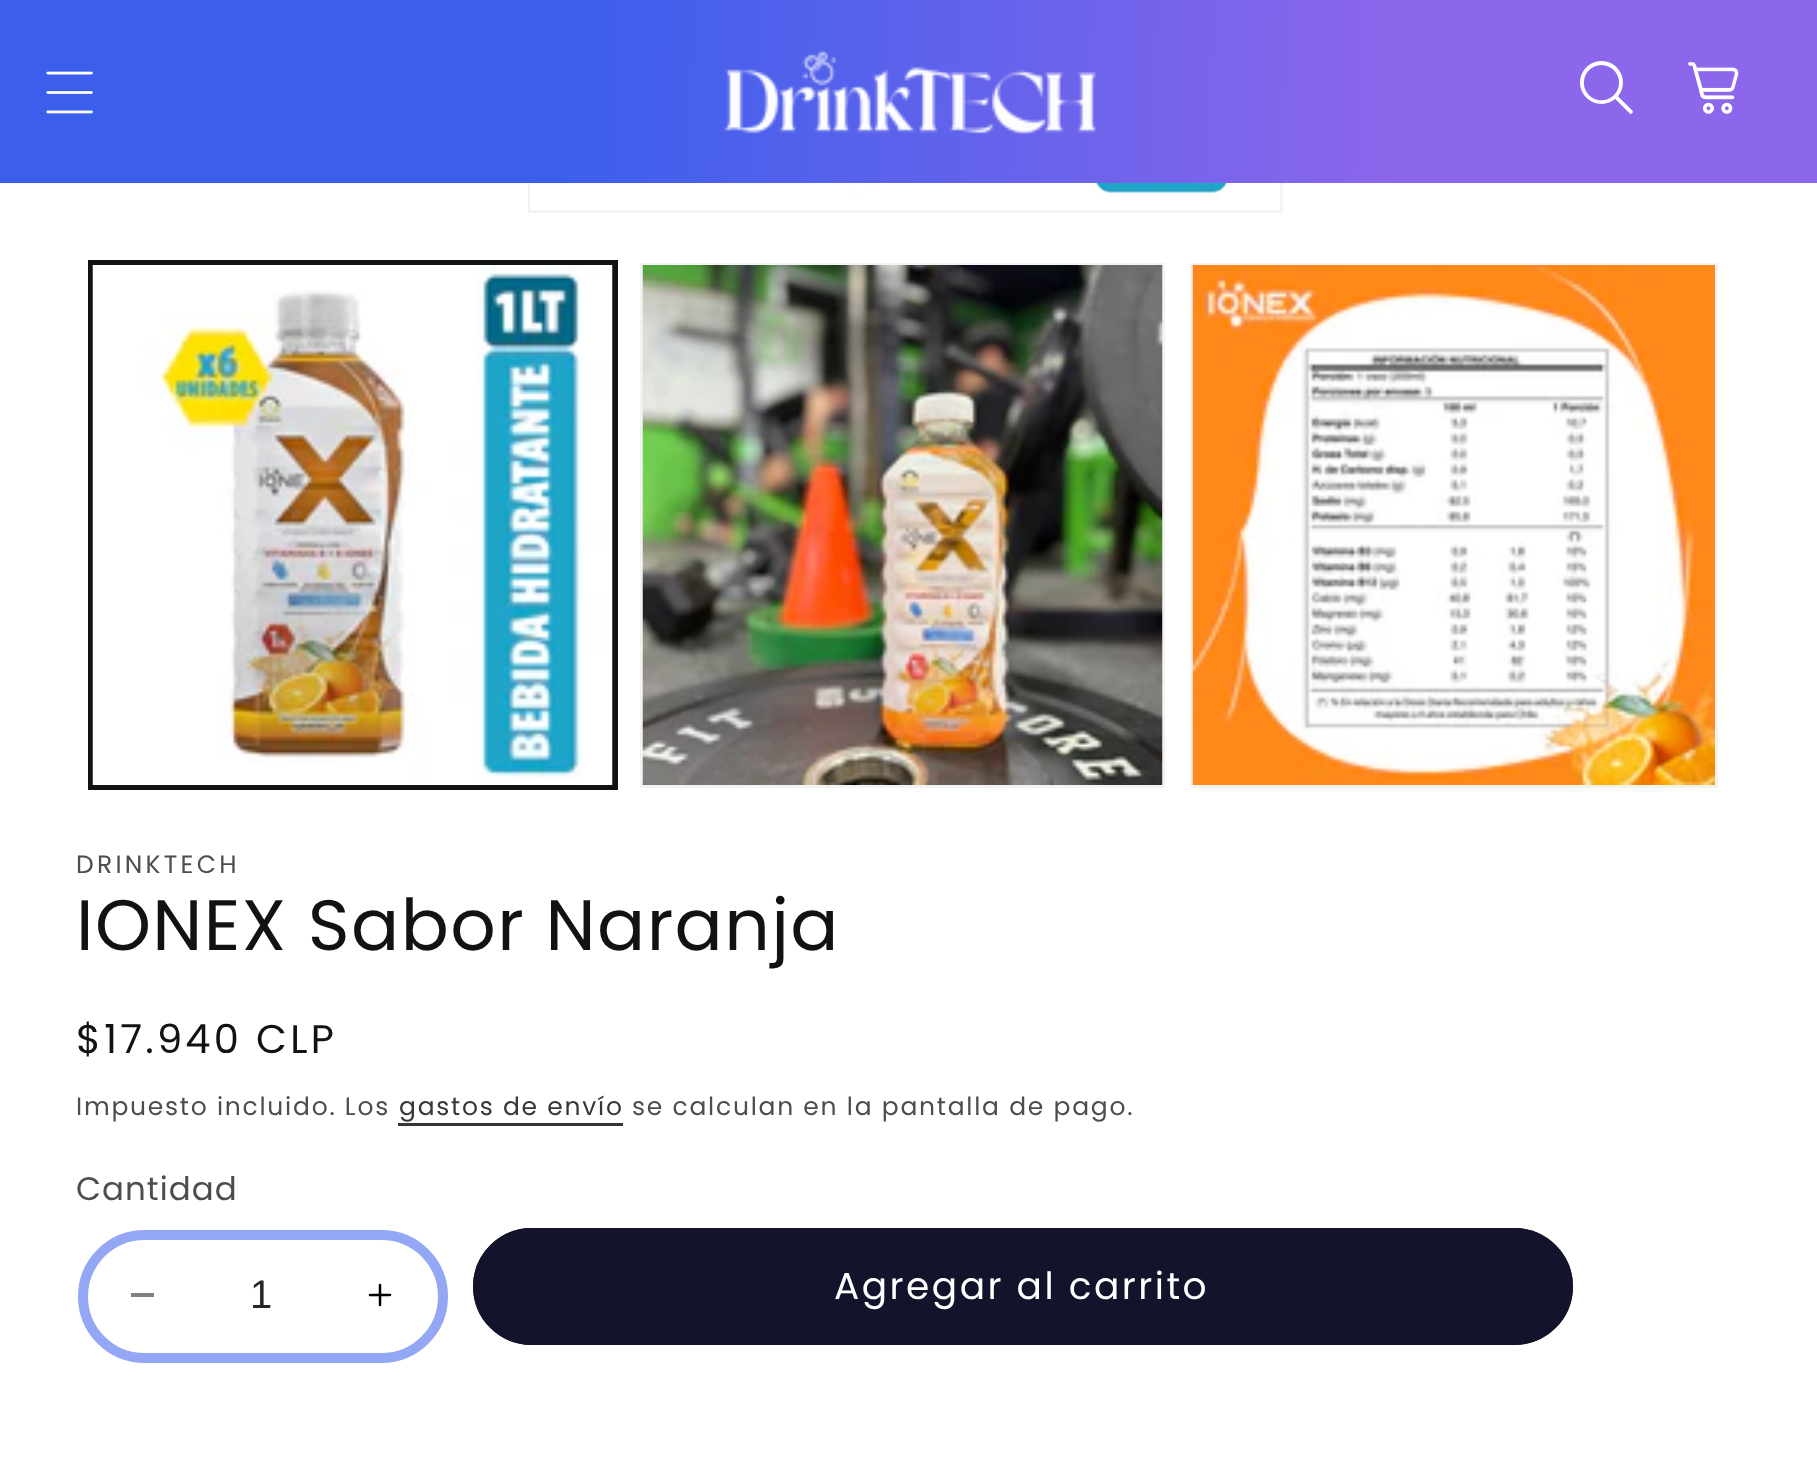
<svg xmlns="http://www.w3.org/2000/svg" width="1817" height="1469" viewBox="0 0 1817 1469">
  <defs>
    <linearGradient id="g1" gradientUnits="userSpaceOnUse" x1="-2.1" y1="59" x2="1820" y2="123"><stop offset="0.31" stop-color="#3b5fec"/><stop offset="0.77" stop-color="#8c66eb"/></linearGradient>
  </defs>
  <rect width="100%" height="100%" fill="#ffffff"/>
  <rect x="529.5" y="-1.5" width="752" height="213" fill="none" stroke="#f3f3f3" stroke-width="3"/>
  <rect x="0" y="0" width="1817" height="183" fill="url(#g1)"/>
  <image x="46" y="71" width="47" height="43" href="img1.png"/>
  <image x="724" y="50" width="373" height="85" href="img2.png"/>
  <image x="1580" y="61" width="53" height="53" href="img3.png"/>
  <image x="1688" y="62" width="51" height="52" href="img4.png"/>
  <image x="530" y="183" width="700" height="27" href="img5.png"/>
  <rect x="89.5" y="261.5" width="527" height="527" fill="none" stroke="#121212" stroke-width="3"/>
  <rect x="91.5" y="264.5" width="522" height="522" fill="none" stroke="#121212" stroke-width="3"/>
  <image x="92" y="265" width="521" height="520" href="img6.png"/>
  <rect x="641.5" y="264.5" width="522" height="522" fill="none" stroke="#f3f3f3" stroke-width="3"/>
  <image x="642" y="265" width="521" height="520" href="img7.png"/>
  <rect x="1191.5" y="264.5" width="525" height="522" fill="none" stroke="#f3f3f3" stroke-width="3"/>
  <image x="1192" y="265" width="523" height="520" href="img8.png"/>
  <text x="76" y="873" font-family="Poppins" font-size="25" letter-spacing="3.25" fill="#4d4d4d">DRINKTECH</text>
  <text x="76" y="950" font-family="Poppins" font-size="71.25" letter-spacing="1.4" fill="#121212">IONEX Sabor Naranja</text>
  <text x="76" y="1053" font-family="Poppins" font-size="40" letter-spacing="3.25" fill="#121212">$17.940 CLP</text>
  <text x="76" y="1115" font-family="Poppins" font-size="25" letter-spacing="1.75" fill="#4d4d4d">Impuesto incluido. Los</text>
  <text x="399" y="1115" font-family="Poppins" font-size="25" letter-spacing="1.75" fill="#363636">gastos de envío</text>
  <rect x="398" y="1123" width="225" height="3" fill="#363636"/>
  <text x="632" y="1115" font-family="Poppins" font-size="25" letter-spacing="1.75" fill="#4d4d4d">se calculan en la pantalla de pago.</text>
  <text x="76" y="1200" font-family="Poppins" font-size="32.5" letter-spacing="1" fill="#4d4d4d">Cantidad</text>
  <rect x="131" y="1293" width="23" height="4" fill="#808080"/>
  <image x="368" y="1283" width="24" height="24" href="img9.png"/>
  <rect x="83" y="1235" width="360" height="123" rx="61.5" fill="none" stroke="#93a7f5" stroke-width="10"/>
  <text x="250" y="1308" font-family="Liberation Sans" font-size="40" fill="#262626">1</text>
  <rect x="473" y="1228" width="1100" height="117" rx="58.5" fill="#13142b"/>
  <rect x="474.5" y="1229.5" width="1097" height="114" rx="57" fill="none" stroke="#13142b" stroke-width="3"/>
  <text x="834" y="1299" font-family="Poppins" font-size="37.5" letter-spacing="2.5" fill="#ffffff">Agregar al carrito</text>
</svg>
